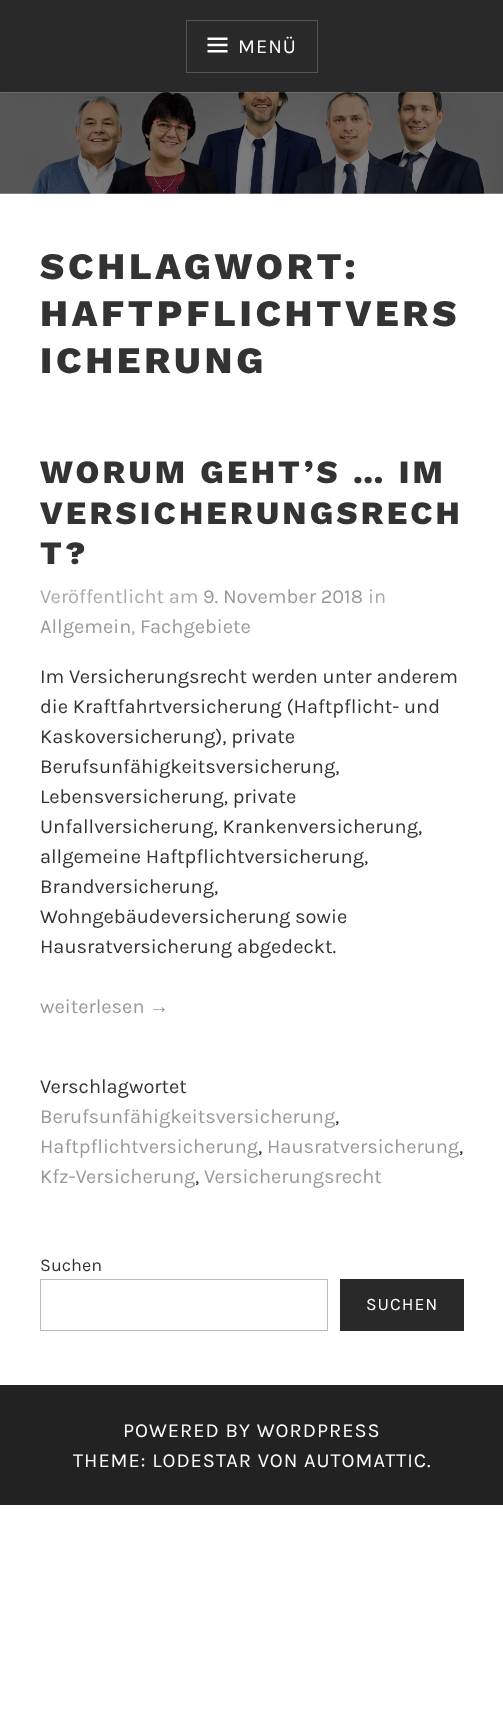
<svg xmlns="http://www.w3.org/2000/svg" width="503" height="1712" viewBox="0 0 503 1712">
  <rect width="100%" height="100%" fill="#ffffff"/>
  <rect x="0" y="0" width="503" height="93" fill="#29292a"/>
  <rect x="186.5" y="20.5" width="131" height="52" fill="none" stroke="#545455"/>
  <image x="207" y="37" width="21" height="16" href="img1.png"/>
  <text x="238" y="53" font-family="Karla" font-size="20" letter-spacing="1" fill="#ffffff">MENÜ</text>
  <image x="0" y="92" width="503" height="102" href="img2.png"/>
  <text x="40" y="279" font-family="Work Sans" font-size="37.5" font-weight="800" letter-spacing="3.75" fill="#333333">SCHLAGWORT:</text>
  <text x="40" y="326" font-family="Work Sans" font-size="37.5" font-weight="800" letter-spacing="3.75" fill="#333333">HAFTPFLICHTVERS</text>
  <text x="40" y="373" font-family="Work Sans" font-size="37.5" font-weight="800" letter-spacing="3.75" fill="#333333">ICHERUNG</text>
  <text x="40" y="483" font-family="Work Sans" font-size="32.5" font-weight="800" letter-spacing="3.25" fill="#333333">WORUM GEHT’S … IM</text>
  <text x="40" y="524" font-family="Work Sans" font-size="32.5" font-weight="800" letter-spacing="3.25" fill="#333333">VERSICHERUNGSRECH</text>
  <text x="40" y="564" font-family="Work Sans" font-size="32.5" font-weight="800" letter-spacing="3.25" fill="#333333">T?</text>
  <text x="40" y="603" font-family="Karla" font-size="20" fill="#aaaaaa">Veröffentlicht am</text>
  <text x="203" y="603" font-family="Karla" font-size="20" fill="#999999">9. November 2018</text>
  <text x="368" y="603" font-family="Karla" font-size="20" fill="#aaaaaa">in</text>
  <text x="40" y="633" font-family="Karla" font-size="20" fill="#999999">Allgemein</text>
  <text x="131" y="633" font-family="Karla" font-size="20" fill="#aaaaaa">,</text>
  <text x="140" y="633" font-family="Karla" font-size="20" fill="#999999">Fachgebiete</text>
  <text x="40" y="683" font-family="Karla" font-size="20" fill="#333333">Im Versicherungsrecht werden unter anderem</text>
  <text x="40" y="713" font-family="Karla" font-size="20" fill="#333333">die Kraftfahrtversicherung (Haftpflicht- und</text>
  <text x="40" y="743" font-family="Karla" font-size="20" fill="#333333">Kaskoversicherung), private</text>
  <text x="40" y="773" font-family="Karla" font-size="20" fill="#333333">Berufsunfähigkeitsversicherung,</text>
  <text x="40" y="803" font-family="Karla" font-size="20" fill="#333333">Lebensversicherung, private</text>
  <text x="40" y="833" font-family="Karla" font-size="20" fill="#333333">Unfallversicherung, Krankenversicherung,</text>
  <text x="40" y="863" font-family="Karla" font-size="20" fill="#333333">allgemeine Haftpflichtversicherung,</text>
  <text x="40" y="893" font-family="Karla" font-size="20" fill="#333333">Brandversicherung,</text>
  <text x="40" y="923" font-family="Karla" font-size="20" fill="#333333">Wohngebäudeversicherung sowie</text>
  <text x="40" y="953" font-family="Karla" font-size="20" fill="#333333">Hausratversicherung abgedeckt.</text>
  <text x="40" y="1013" font-family="Karla" font-size="20" fill="#999999">weiterlesen</text>
  <text x="149" y="1013" font-family="Liberation Sans" font-size="20" fill="#999999">→</text>
  <text x="40" y="1093" font-family="Karla" font-size="20" fill="#333333">Verschlagwortet</text>
  <text x="40" y="1123" font-family="Karla" font-size="20" fill="#999999">Berufsunfähigkeitsversicherung</text>
  <text x="335" y="1123" font-family="Karla" font-size="20" fill="#333333">,</text>
  <text x="40" y="1153" font-family="Karla" font-size="20" fill="#999999">Haftpflichtversicherung</text>
  <text x="258" y="1153" font-family="Karla" font-size="20" fill="#333333">,</text>
  <text x="267" y="1153" font-family="Karla" font-size="20" fill="#999999">Hausratversicherung</text>
  <text x="459" y="1153" font-family="Karla" font-size="20" fill="#333333">,</text>
  <text x="40" y="1183" font-family="Karla" font-size="20" fill="#999999">Kfz-Versicherung</text>
  <text x="195" y="1183" font-family="Karla" font-size="20" fill="#333333">,</text>
  <text x="204" y="1183" font-family="Karla" font-size="20" fill="#999999">Versicherungsrecht</text>
  <text x="40" y="1271" font-family="Karla" font-size="18" fill="#333333">Suchen</text>
  <rect x="40.5" y="1279.5" width="287" height="51" fill="none" stroke="#bbbbbb"/>
  <rect x="340" y="1279" width="124" height="52" fill="#29292a"/>
  <text x="366" y="1310" font-family="Karla" font-size="17.5" letter-spacing="1" fill="#ffffff">SUCHEN</text>
  <rect x="0" y="1385" width="503" height="120" fill="#222222"/>
  <text x="123" y="1437" font-family="Karla" font-size="20" letter-spacing="1" fill="#ffffff">POWERED BY WORDPRESS</text>
  <text x="73" y="1467" font-family="Karla" font-size="20" letter-spacing="1" fill="#ffffff">THEME: LODESTAR VON AUTOMATTIC.</text>
</svg>
